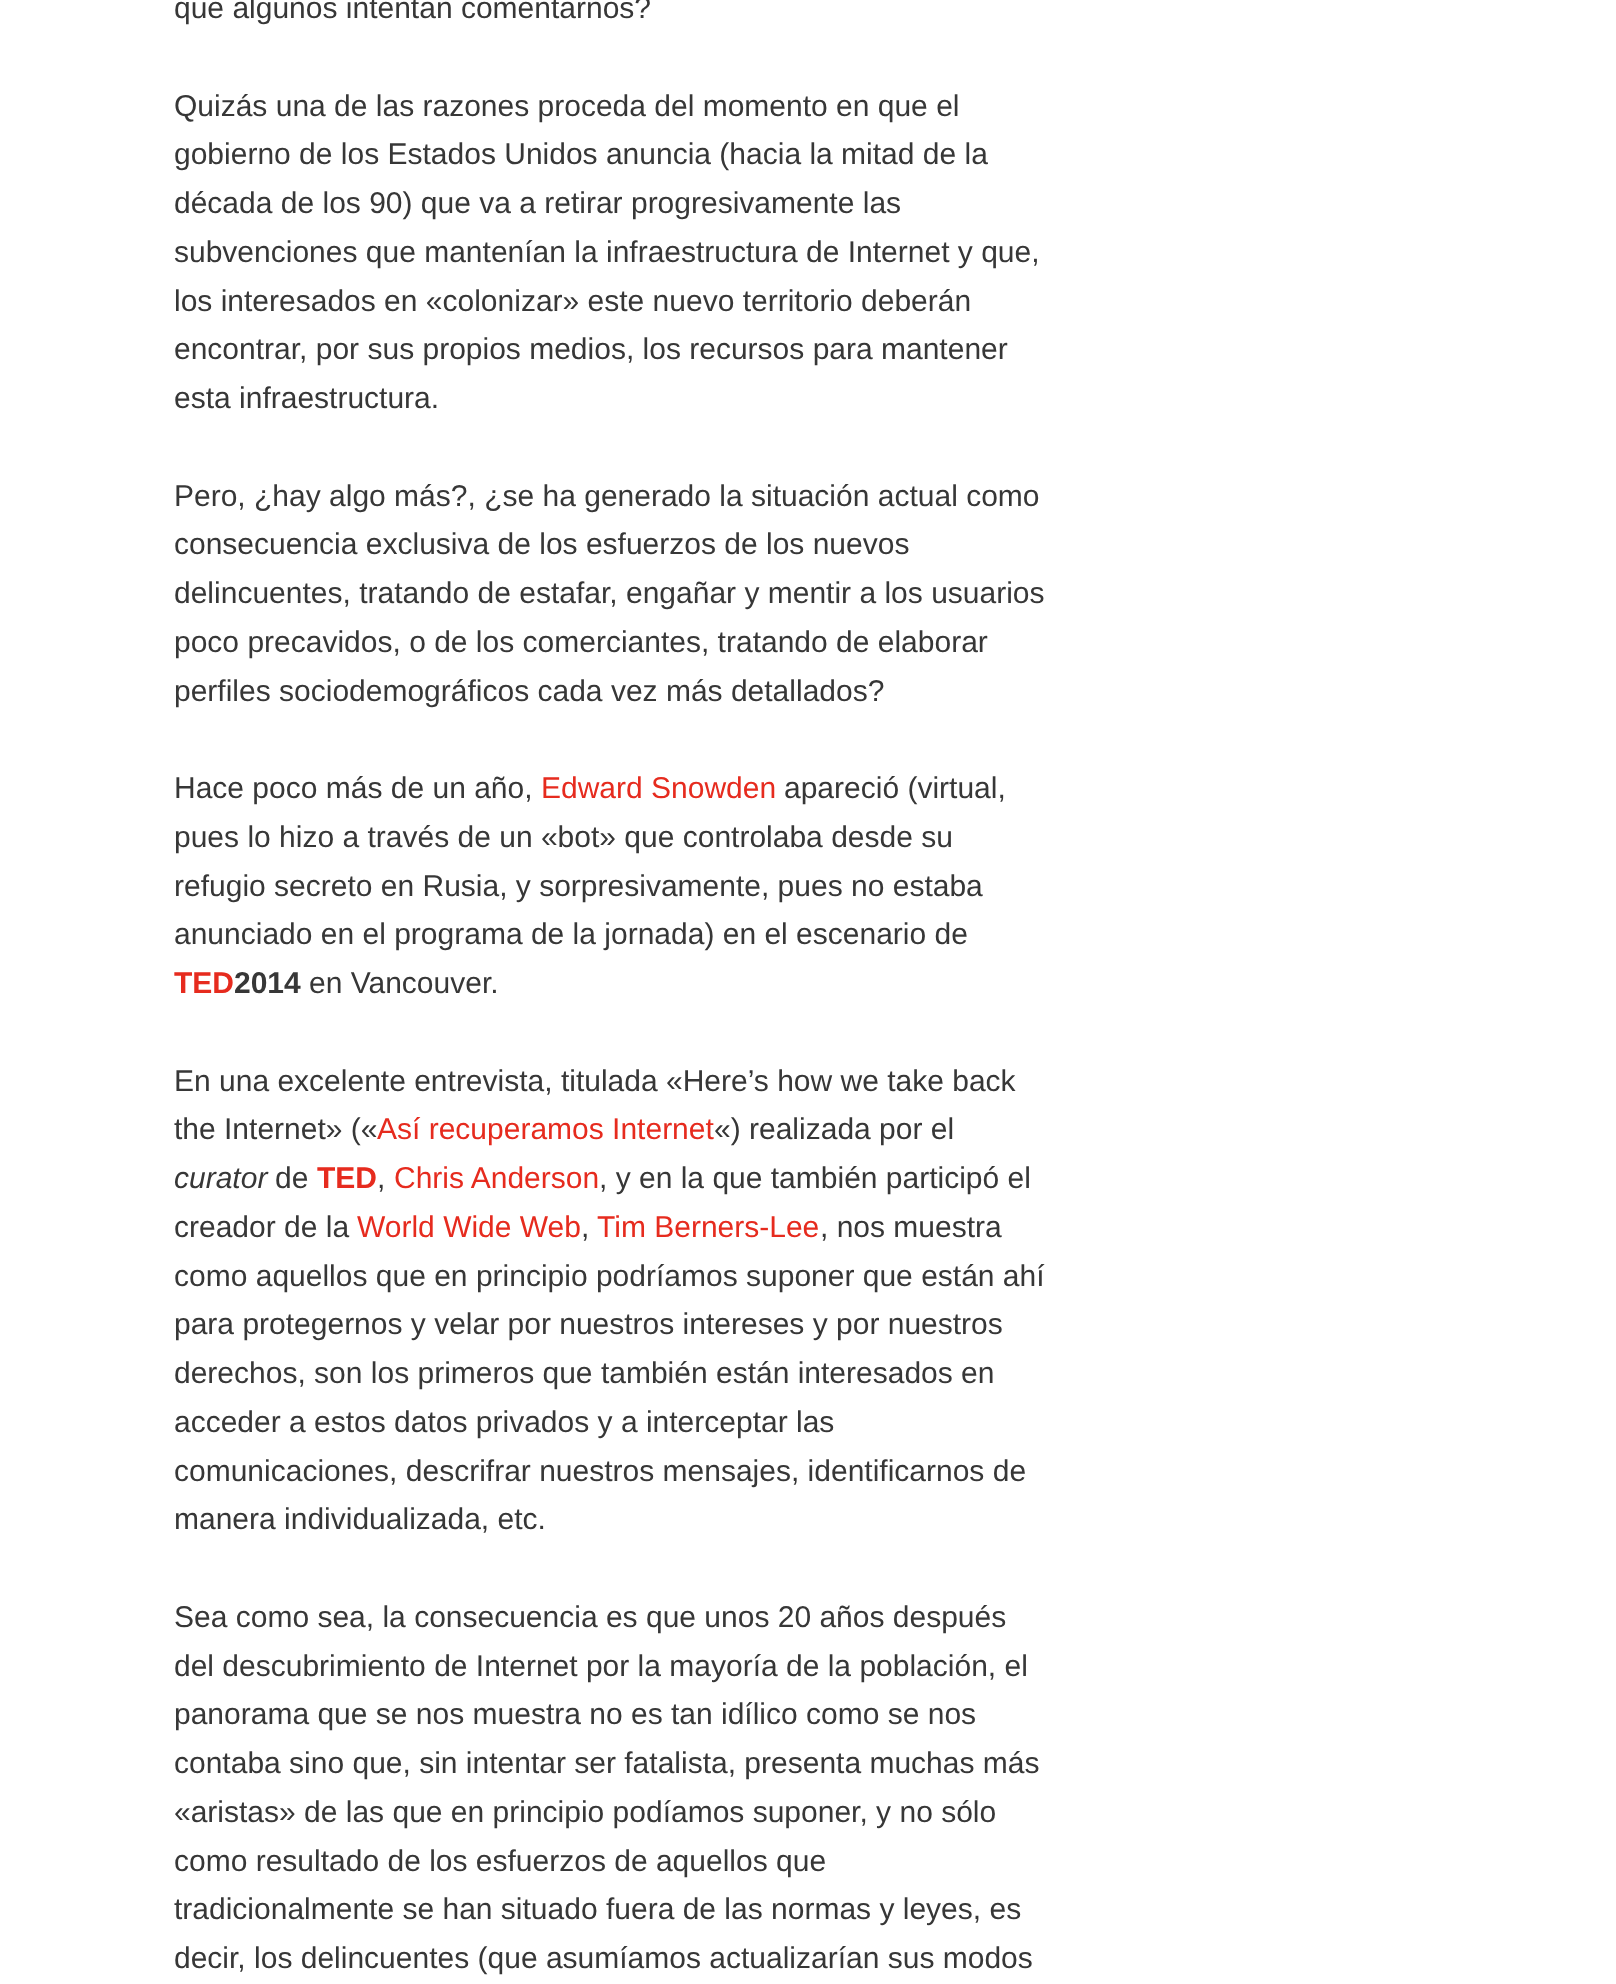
<svg xmlns="http://www.w3.org/2000/svg" width="1616" height="1984" viewBox="0 0 1616 1984">
  <rect width="100%" height="100%" fill="#ffffff"/>
  <text x="174" y="18" font-family="Liberation Sans" font-size="30" fill="#373737">que algunos intentan comentarnos?</text>
  <text x="174" y="116" font-family="Liberation Sans" font-size="30" fill="#373737">Quizás una de las razones proceda del momento en que el</text>
  <text x="174" y="164" font-family="Liberation Sans" font-size="30" fill="#373737">gobierno de los Estados Unidos anuncia (hacia la mitad de la</text>
  <text x="174" y="213" font-family="Liberation Sans" font-size="30" fill="#373737">década de los 90) que va a retirar progresivamente las</text>
  <text x="174" y="262" font-family="Liberation Sans" font-size="30" fill="#373737">subvenciones que mantenían la infraestructura de Internet y que,</text>
  <text x="174" y="311" font-family="Liberation Sans" font-size="30" fill="#373737">los interesados en «colonizar» este nuevo territorio deberán</text>
  <text x="174" y="359" font-family="Liberation Sans" font-size="30" fill="#373737">encontrar, por sus propios medios, los recursos para mantener</text>
  <text x="174" y="408" font-family="Liberation Sans" font-size="30" fill="#373737">esta infraestructura.</text>
  <text x="174" y="506" font-family="Liberation Sans" font-size="30" fill="#373737">Pero, ¿hay algo más?, ¿se ha generado la situación actual como</text>
  <text x="174" y="554" font-family="Liberation Sans" font-size="30" fill="#373737">consecuencia exclusiva de los esfuerzos de los nuevos</text>
  <text x="174" y="603" font-family="Liberation Sans" font-size="30" fill="#373737">delincuentes, tratando de estafar, engañar y mentir a los usuarios</text>
  <text x="174" y="652" font-family="Liberation Sans" font-size="30" fill="#373737">poco precavidos, o de los comerciantes, tratando de elaborar</text>
  <text x="174" y="701" font-family="Liberation Sans" font-size="30" fill="#373737">perfiles sociodemográficos cada vez más detallados?</text>
  <text x="174" y="798" font-family="Liberation Sans" font-size="30" fill="#373737">Hace poco más de un año,</text>
  <text x="541" y="798" font-family="Liberation Sans" font-size="30" fill="#e62b1e">Edward Snowden</text>
  <text x="784" y="798" font-family="Liberation Sans" font-size="30" fill="#373737">apareció (virtual,</text>
  <text x="174" y="847" font-family="Liberation Sans" font-size="30" fill="#373737">pues lo hizo a través de un «bot» que controlaba desde su</text>
  <text x="174" y="896" font-family="Liberation Sans" font-size="30" fill="#373737">refugio secreto en Rusia, y sorpresivamente, pues no estaba</text>
  <text x="174" y="944" font-family="Liberation Sans" font-size="30" fill="#373737">anunciado en el programa de la jornada) en el escenario de</text>
  <text x="174" y="993" font-family="Liberation Sans" font-size="30" font-weight="bold" fill="#e62b1e">TED</text>
  <text x="234" y="993" font-family="Liberation Sans" font-size="30" font-weight="bold" fill="#373737">2014</text>
  <text x="309" y="993" font-family="Liberation Sans" font-size="30" fill="#373737">en Vancouver.</text>
  <text x="174" y="1091" font-family="Liberation Sans" font-size="30" fill="#373737">En una excelente entrevista, titulada «Here’s how we take back</text>
  <text x="174" y="1139" font-family="Liberation Sans" font-size="30" fill="#373737">the Internet» («</text>
  <text x="377" y="1139" font-family="Liberation Sans" font-size="30" fill="#e62b1e">Así recuperamos Internet</text>
  <text x="714" y="1139" font-family="Liberation Sans" font-size="30" fill="#373737">«) realizada por el</text>
  <text x="174" y="1188" font-family="Liberation Sans" font-size="30" font-style="italic" fill="#373737">curator</text>
  <text x="275" y="1188" font-family="Liberation Sans" font-size="30" fill="#373737">de</text>
  <text x="317" y="1188" font-family="Liberation Sans" font-size="30" font-weight="bold" fill="#e62b1e">TED</text>
  <text x="377" y="1188" font-family="Liberation Sans" font-size="30" fill="#373737">,</text>
  <text x="394" y="1188" font-family="Liberation Sans" font-size="30" fill="#e62b1e">Chris Anderson</text>
  <text x="599" y="1188" font-family="Liberation Sans" font-size="30" fill="#373737">, y en la que también participó el</text>
  <text x="174" y="1237" font-family="Liberation Sans" font-size="30" fill="#373737">creador de la</text>
  <text x="357" y="1237" font-family="Liberation Sans" font-size="30" fill="#e62b1e">World Wide Web</text>
  <text x="581" y="1237" font-family="Liberation Sans" font-size="30" fill="#373737">,</text>
  <text x="597" y="1237" font-family="Liberation Sans" font-size="30" fill="#e62b1e">Tim Berners-Lee</text>
  <text x="820" y="1237" font-family="Liberation Sans" font-size="30" fill="#373737">, nos muestra</text>
  <text x="174" y="1286" font-family="Liberation Sans" font-size="30" fill="#373737">como aquellos que en principio podríamos suponer que están ahí</text>
  <text x="174" y="1334" font-family="Liberation Sans" font-size="30" fill="#373737">para protegernos y velar por nuestros intereses y por nuestros</text>
  <text x="174" y="1383" font-family="Liberation Sans" font-size="30" fill="#373737">derechos, son los primeros que también están interesados en</text>
  <text x="174" y="1432" font-family="Liberation Sans" font-size="30" fill="#373737">acceder a estos datos privados y a interceptar las</text>
  <text x="174" y="1481" font-family="Liberation Sans" font-size="30" fill="#373737">comunicaciones, descrifrar nuestros mensajes, identificarnos de</text>
  <text x="174" y="1529" font-family="Liberation Sans" font-size="30" fill="#373737">manera individualizada, etc.</text>
  <text x="174" y="1627" font-family="Liberation Sans" font-size="30" fill="#373737">Sea como sea, la consecuencia es que unos 20 años después</text>
  <text x="174" y="1676" font-family="Liberation Sans" font-size="30" fill="#373737">del descubrimiento de Internet por la mayoría de la población, el</text>
  <text x="174" y="1724" font-family="Liberation Sans" font-size="30" fill="#373737">panorama que se nos muestra no es tan idílico como se nos</text>
  <text x="174" y="1773" font-family="Liberation Sans" font-size="30" fill="#373737">contaba sino que, sin intentar ser fatalista, presenta muchas más</text>
  <text x="174" y="1822" font-family="Liberation Sans" font-size="30" fill="#373737">«aristas» de las que en principio podíamos suponer, y no sólo</text>
  <text x="174" y="1871" font-family="Liberation Sans" font-size="30" fill="#373737">como resultado de los esfuerzos de aquellos que</text>
  <text x="174" y="1919" font-family="Liberation Sans" font-size="30" fill="#373737">tradicionalmente se han situado fuera de las normas y leyes, es</text>
  <text x="174" y="1968" font-family="Liberation Sans" font-size="30" fill="#373737">decir, los delincuentes (que asumíamos actualizarían sus modos</text>
</svg>
